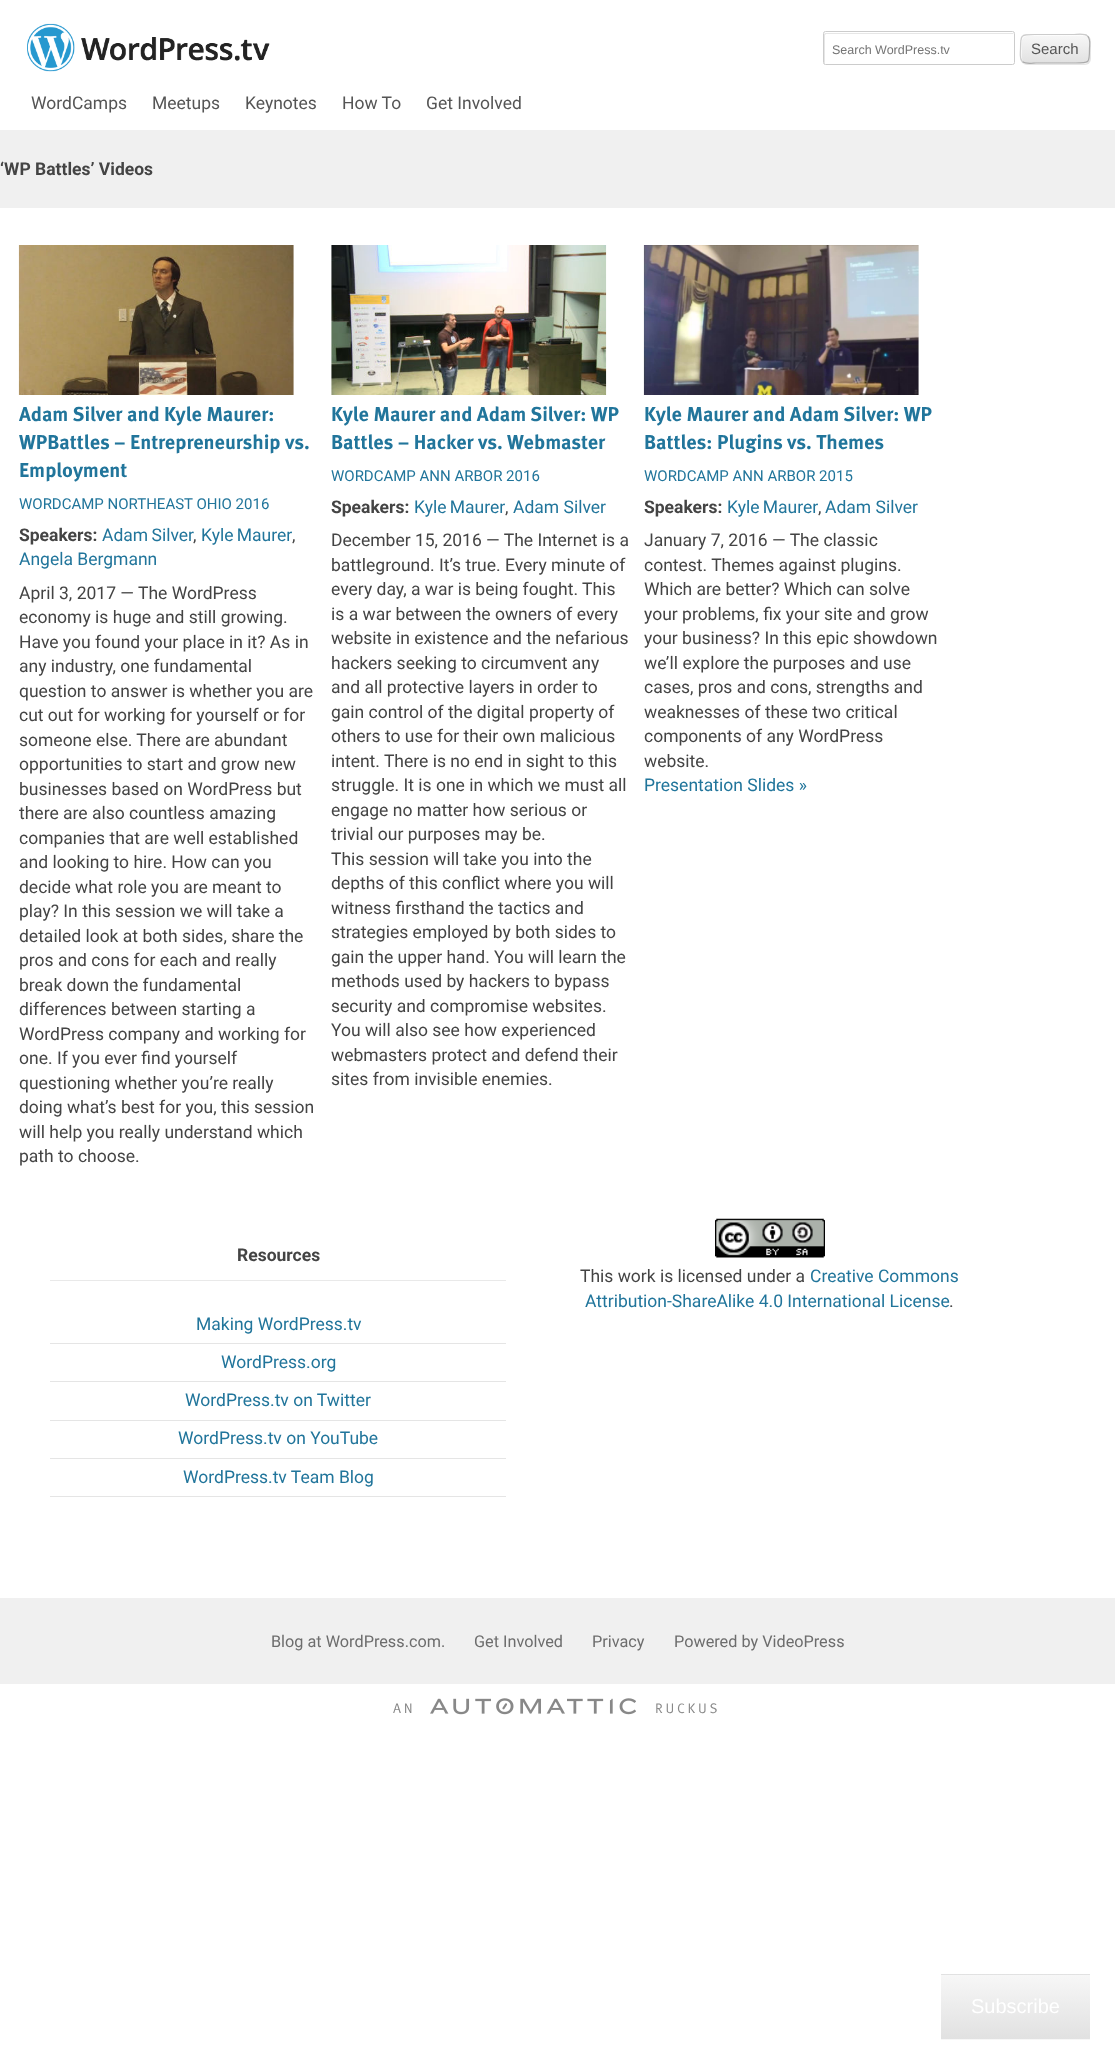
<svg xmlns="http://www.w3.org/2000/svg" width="1115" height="2065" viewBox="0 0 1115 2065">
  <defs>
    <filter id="blur1" x="-50%" y="-200%" width="200%" height="500%"><feGaussianBlur stdDeviation="0.5"/></filter>
    <clipPath id="clip1"><rect x="1020" y="34" width="70" height="30" rx="6"/></clipPath>
    <linearGradient id="g1" gradientUnits="userSpaceOnUse" x1="1021" y1="7.5" x2="1021" y2="35"><stop offset="0" stop-color="#f7f7f7"/><stop offset="1" stop-color="#e1e1e1"/></linearGradient>
    <linearGradient id="g2" gradientUnits="userSpaceOnUse" x1="1021" y1="35" x2="1021" y2="63"><stop offset="0" stop-color="#f7f7f7"/><stop offset="1" stop-color="#e1e1e1"/></linearGradient>
    <linearGradient id="g3" gradientUnits="userSpaceOnUse" x1="1021" y1="63" x2="1021" y2="90"><stop offset="0" stop-color="#f7f7f7"/><stop offset="1" stop-color="#e1e1e1"/></linearGradient>
    <linearGradient id="g4" gradientUnits="userSpaceOnUse" x1="943" y1="1911" x2="943" y2="1975"><stop offset="0" stop-color="#f7f7f7"/><stop offset="1" stop-color="#e1e1e1"/></linearGradient>
    <linearGradient id="g5" gradientUnits="userSpaceOnUse" x1="943" y1="1975" x2="943" y2="2039"><stop offset="0" stop-color="#f7f7f7"/><stop offset="1" stop-color="#e1e1e1"/></linearGradient>
    <linearGradient id="g6" gradientUnits="userSpaceOnUse" x1="943" y1="2039" x2="943" y2="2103"><stop offset="0" stop-color="#f7f7f7"/><stop offset="1" stop-color="#e1e1e1"/></linearGradient>
  </defs>
  <rect width="100%" height="100%" fill="#ffffff"/>
  <image x="27" y="23" width="243" height="49" href="img1.png"/>
  <path d="M826 34H1014L1013 33H825L824 34V63L825 64V35Z" fill="#e6e6e6"/>
  <rect x="823.5" y="31.5" width="191" height="33" rx="2" fill="none" stroke="#cccccc"/>
  <text x="832" y="54" font-family="Liberation Sans" font-size="12.5" fill="#757575">Search WordPress.tv</text>
  <rect x="1021" y="35" width="70" height="30" rx="6" fill="#000000" fill-opacity="0.1" filter="url(#blur1)"/>
  <g clip-path="url(#clip1)">
    <rect x="1020" y="34" width="70" height="1" fill="url(#g1)"/>
    <rect x="1020" y="35" width="70" height="28" fill="url(#g2)"/>
    <rect x="1020" y="63" width="70" height="1" fill="url(#g3)"/>
  </g>
  <path d="M1028 36H1085L1088 37C1087 36 1085 35 1084 35H1026C1023 35 1021 37 1021 40V58C1021 60 1022 62 1024 62C1021 60 1022 53 1022 50C1022 45 1020 36 1028 36Z" fill="#ffffff" fill-opacity="0.7"/>
  <path d="M1087.5 36C1091 39 1089.5 45 1089.5 49C1089.5 63.5 1089.5 63 1074 63H1036C1033 63 1025.5 64.5 1022.5 61.5" fill="none" stroke="#aaaaaa" stroke-width="1.2"/>
  <path d="M1022.5 61.5C1019 58.5 1020.5 52.5 1020.5 49C1020.5 34 1020.5 34.5 1036 34.5H1074C1077 34.5 1084.5 33 1087.5 36" fill="none" stroke="#cccccc" stroke-width="1.2"/>
  <text x="1031" y="54" font-family="Liberation Sans" font-size="15" fill="#555555">Search</text>
  <text x="31" y="109" font-family="Roboto" font-size="17.5" fill="#555555">WordCamps</text>
  <text x="152" y="109" font-family="Roboto" font-size="17.5" fill="#555555">Meetups</text>
  <text x="245" y="109" font-family="Roboto" font-size="17.5" fill="#555555">Keynotes</text>
  <text x="342" y="109" font-family="Roboto" font-size="17.5" fill="#555555">How To</text>
  <text x="426" y="109" font-family="Roboto" font-size="17.5" fill="#555555">Get Involved</text>
  <rect x="0" y="130" width="1115" height="78" fill="#f0f0f0"/>
  <text x="0" y="175" font-family="Roboto" font-size="17.5" font-weight="bold" fill="#444444">‘WP Battles’ Videos</text>
  <image x="18" y="245" width="276" height="150" href="img2.png"/>
  <text x="19" y="421" font-family="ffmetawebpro" font-size="20" font-weight="bold" fill="#21759b">Adam Silver and Kyle Maurer:</text>
  <text x="19" y="449" font-family="ffmetawebpro" font-size="20" font-weight="bold" fill="#21759b">WPBattles – Entrepreneurship vs.</text>
  <text x="19" y="477" font-family="ffmetawebpro" font-size="20" font-weight="bold" fill="#21759b">Employment</text>
  <text x="19" y="509" font-family="Roboto" font-size="15" fill="#21759b">WORDCAMP NORTHEAST OHIO 2016</text>
  <text x="19" y="541" font-family="Roboto" font-size="17.5" font-weight="bold" fill="#444444">Speakers:</text>
  <text x="102" y="541" word-spacing="-1" font-family="Roboto" font-size="17.5" fill="#21759b">Adam Silver</text>
  <text x="193" y="541" font-family="Roboto" font-size="17.5" fill="#444444">,</text>
  <text x="201" y="541" word-spacing="-1" font-family="Roboto" font-size="17.5" fill="#21759b">Kyle Maurer</text>
  <text x="292" y="541" font-family="Roboto" font-size="17.5" fill="#444444">,</text>
  <text x="19" y="565" font-family="Roboto" font-size="17.5" fill="#21759b">Angela Bergmann</text>
  <text x="19" y="599" font-family="Roboto" font-size="17.5" fill="#444444">April 3, 2017 — The WordPress</text>
  <text x="19" y="623" font-family="Roboto" font-size="17.5" fill="#444444">economy is huge and still growing.</text>
  <text x="19" y="648" font-family="Roboto" font-size="17.5" fill="#444444">Have you found your place in it? As in</text>
  <text x="19" y="672" font-family="Roboto" font-size="17.5" fill="#444444">any industry, one fundamental</text>
  <text x="19" y="697" font-family="Roboto" font-size="17.5" fill="#444444">question to answer is whether you are</text>
  <text x="19" y="721" font-family="Roboto" font-size="17.5" fill="#444444">cut out for working for yourself or for</text>
  <text x="19" y="746" font-family="Roboto" font-size="17.5" fill="#444444">someone else. There are abundant</text>
  <text x="19" y="770" font-family="Roboto" font-size="17.5" fill="#444444">opportunities to start and grow new</text>
  <text x="19" y="795" font-family="Roboto" font-size="17.5" fill="#444444">businesses based on WordPress but</text>
  <text x="19" y="819" font-family="Roboto" font-size="17.5" fill="#444444">there are also countless amazing</text>
  <text x="19" y="844" font-family="Roboto" font-size="17.5" fill="#444444">companies that are well established</text>
  <text x="19" y="868" font-family="Roboto" font-size="17.5" fill="#444444">and looking to hire. How can you</text>
  <text x="19" y="893" font-family="Roboto" font-size="17.5" fill="#444444">decide what role you are meant to</text>
  <text x="19" y="917" font-family="Roboto" font-size="17.5" fill="#444444">play? In this session we will take a</text>
  <text x="19" y="942" font-family="Roboto" font-size="17.5" fill="#444444">detailed look at both sides, share the</text>
  <text x="19" y="966" font-family="Roboto" font-size="17.5" fill="#444444">pros and cons for each and really</text>
  <text x="19" y="991" font-family="Roboto" font-size="17.5" fill="#444444">break down the fundamental</text>
  <text x="19" y="1015" font-family="Roboto" font-size="17.5" fill="#444444">differences between starting a</text>
  <text x="19" y="1040" font-family="Roboto" font-size="17.5" fill="#444444">WordPress company and working for</text>
  <text x="19" y="1064" font-family="Roboto" font-size="17.5" fill="#444444">one. If you ever find yourself</text>
  <text x="19" y="1089" font-family="Roboto" font-size="17.5" fill="#444444">questioning whether you’re really</text>
  <text x="19" y="1113" font-family="Roboto" font-size="17.5" fill="#444444">doing what’s best for you, this session</text>
  <text x="19" y="1138" font-family="Roboto" font-size="17.5" fill="#444444">will help you really understand which</text>
  <text x="19" y="1162" font-family="Roboto" font-size="17.5" fill="#444444">path to choose.</text>
  <image x="331" y="245" width="276" height="150" href="img3.png"/>
  <text x="331" y="421" font-family="ffmetawebpro" font-size="20" font-weight="bold" fill="#21759b">Kyle Maurer and Adam Silver: WP</text>
  <text x="331" y="449" font-family="ffmetawebpro" font-size="20" font-weight="bold" fill="#21759b">Battles – Hacker vs. Webmaster</text>
  <text x="331" y="481" font-family="Roboto" font-size="15" fill="#21759b">WORDCAMP ANN ARBOR 2016</text>
  <text x="331" y="513" font-family="Roboto" font-size="17.5" font-weight="bold" fill="#444444">Speakers:</text>
  <text x="414" y="513" word-spacing="-1" font-family="Roboto" font-size="17.5" fill="#21759b">Kyle Maurer</text>
  <text x="505" y="513" font-family="Roboto" font-size="17.5" fill="#444444">,</text>
  <text x="513" y="513" font-family="Roboto" font-size="17.5" fill="#21759b">Adam Silver</text>
  <text x="331" y="546" font-family="Roboto" font-size="17.5" fill="#444444">December 15, 2016 — The Internet is a</text>
  <text x="331" y="571" font-family="Roboto" font-size="17.5" fill="#444444">battleground. It’s true. Every minute of</text>
  <text x="331" y="595" font-family="Roboto" font-size="17.5" fill="#444444">every day, a war is being fought. This</text>
  <text x="331" y="620" font-family="Roboto" font-size="17.5" fill="#444444">is a war between the owners of every</text>
  <text x="331" y="644" font-family="Roboto" font-size="17.5" fill="#444444">website in existence and the nefarious</text>
  <text x="331" y="669" font-family="Roboto" font-size="17.5" fill="#444444">hackers seeking to circumvent any</text>
  <text x="331" y="693" font-family="Roboto" font-size="17.5" fill="#444444">and all protective layers in order to</text>
  <text x="331" y="718" font-family="Roboto" font-size="17.5" fill="#444444">gain control of the digital property of</text>
  <text x="331" y="742" font-family="Roboto" font-size="17.5" fill="#444444">others to use for their own malicious</text>
  <text x="331" y="767" font-family="Roboto" font-size="17.5" fill="#444444">intent. There is no end in sight to this</text>
  <text x="331" y="791" font-family="Roboto" font-size="17.5" fill="#444444">struggle. It is one in which we must all</text>
  <text x="331" y="816" font-family="Roboto" font-size="17.5" fill="#444444">engage no matter how serious or</text>
  <text x="331" y="840" font-family="Roboto" font-size="17.5" fill="#444444">trivial our purposes may be.</text>
  <text x="331" y="865" font-family="Roboto" font-size="17.5" fill="#444444">This session will take you into the</text>
  <text x="331" y="889" font-family="Roboto" font-size="17.5" fill="#444444">depths of this conflict where you will</text>
  <text x="331" y="914" font-family="Roboto" font-size="17.5" fill="#444444">witness firsthand the tactics and</text>
  <text x="331" y="938" font-family="Roboto" font-size="17.5" fill="#444444">strategies employed by both sides to</text>
  <text x="331" y="963" font-family="Roboto" font-size="17.5" fill="#444444">gain the upper hand. You will learn the</text>
  <text x="331" y="987" font-family="Roboto" font-size="17.5" fill="#444444">methods used by hackers to bypass</text>
  <text x="331" y="1012" font-family="Roboto" font-size="17.5" fill="#444444">security and compromise websites.</text>
  <text x="331" y="1036" font-family="Roboto" font-size="17.5" fill="#444444">You will also see how experienced</text>
  <text x="331" y="1061" font-family="Roboto" font-size="17.5" fill="#444444">webmasters protect and defend their</text>
  <text x="331" y="1085" font-family="Roboto" font-size="17.5" fill="#444444">sites from invisible enemies.</text>
  <image x="643" y="245" width="276" height="150" href="img4.png"/>
  <text x="644" y="421" font-family="ffmetawebpro" font-size="20" font-weight="bold" fill="#21759b">Kyle Maurer and Adam Silver: WP</text>
  <text x="644" y="449" font-family="ffmetawebpro" font-size="20" font-weight="bold" fill="#21759b">Battles: Plugins vs. Themes</text>
  <text x="644" y="481" font-family="Roboto" font-size="15" fill="#21759b">WORDCAMP ANN ARBOR 2015</text>
  <text x="644" y="513" font-family="Roboto" font-size="17.5" font-weight="bold" fill="#444444">Speakers:</text>
  <text x="727" y="513" word-spacing="-1" font-family="Roboto" font-size="17.5" fill="#21759b">Kyle Maurer</text>
  <text x="818" y="513" font-family="Roboto" font-size="17.5" fill="#444444">,</text>
  <text x="825" y="513" font-family="Roboto" font-size="17.5" fill="#21759b">Adam Silver</text>
  <text x="644" y="546" font-family="Roboto" font-size="17.5" fill="#444444">January 7, 2016 — The classic</text>
  <text x="644" y="571" font-family="Roboto" font-size="17.5" fill="#444444">contest. Themes against plugins.</text>
  <text x="644" y="595" font-family="Roboto" font-size="17.5" fill="#444444">Which are better? Which can solve</text>
  <text x="644" y="620" font-family="Roboto" font-size="17.5" fill="#444444">your problems, fix your site and grow</text>
  <text x="644" y="644" font-family="Roboto" font-size="17.5" fill="#444444">your business? In this epic showdown</text>
  <text x="644" y="669" font-family="Roboto" font-size="17.5" fill="#444444">we’ll explore the purposes and use</text>
  <text x="644" y="693" font-family="Roboto" font-size="17.5" fill="#444444">cases, pros and cons, strengths and</text>
  <text x="644" y="718" font-family="Roboto" font-size="17.5" fill="#444444">weaknesses of these two critical</text>
  <text x="644" y="742" font-family="Roboto" font-size="17.5" fill="#444444">components of any WordPress</text>
  <text x="644" y="767" font-family="Roboto" font-size="17.5" fill="#444444">website.</text>
  <text x="644" y="791" font-family="Roboto" font-size="17.5" fill="#21759b">Presentation Slides »</text>
  <rect x="50" y="1280" width="456" height="1" fill="#e9e9e9"/>
  <text x="237" y="1261" font-family="Roboto" font-size="17.5" font-weight="bold" fill="#444444">Resources</text>
  <rect x="50" y="1343" width="456" height="1" fill="#e5e5e5"/>
  <text x="196" y="1330" font-family="Roboto" font-size="17.5" fill="#21759b">Making WordPress.tv</text>
  <rect x="50" y="1381" width="456" height="1" fill="#e5e5e5"/>
  <text x="221" y="1368" font-family="Roboto" font-size="17.5" fill="#21759b">WordPress.org</text>
  <rect x="50" y="1420" width="456" height="1" fill="#e5e5e5"/>
  <text x="185" y="1406" font-family="Roboto" font-size="17.5" fill="#21759b">WordPress.tv on Twitter</text>
  <rect x="50" y="1458" width="456" height="1" fill="#e5e5e5"/>
  <text x="178" y="1444" font-family="Roboto" font-size="17.5" fill="#21759b">WordPress.tv on YouTube</text>
  <rect x="50" y="1496" width="456" height="1" fill="#e5e5e5"/>
  <text x="183" y="1483" font-family="Roboto" font-size="17.5" fill="#21759b">WordPress.tv Team Blog</text>
  <image x="715" y="1218" width="110" height="40" href="img5.png"/>
  <text x="580" y="1282" font-family="Roboto" font-size="17.5" fill="#444444">This work is licensed under a</text>
  <text x="810" y="1282" font-family="Roboto" font-size="17.5" fill="#21759b">Creative Commons</text>
  <text x="585" y="1307" font-family="Roboto" font-size="17.5" fill="#21759b">Attribution-ShareAlike 4.0 International License</text>
  <text x="949" y="1307" font-family="Roboto" font-size="17.5" fill="#444444">.</text>
  <rect x="0" y="1598" width="1115" height="86" fill="#f0f0f0"/>
  <text x="271" y="1647" font-family="Roboto" font-size="16.25" fill="#6d6d6d">Blog at WordPress.com.</text>
  <text x="474" y="1647" font-family="Roboto" font-size="16.25" fill="#6d6d6d">Get Involved</text>
  <text x="592" y="1647" font-family="Roboto" font-size="16.25" fill="#6d6d6d">Privacy</text>
  <text x="674" y="1647" font-family="Roboto" font-size="16.25" fill="#6d6d6d">Powered by VideoPress</text>
  <text x="393" y="1713" font-family="ffmetawebpro" font-size="13.75" letter-spacing="2.75" fill="#888888">AN</text>
  <image x="430" y="1698" width="206" height="17" href="img6.png"/>
  <text x="655" y="1713" font-family="ffmetawebpro" font-size="13.75" letter-spacing="2.75" fill="#888888">RUCKUS</text>
  <rect x="941" y="1974" width="149" height="1" fill="url(#g4)"/>
  <rect x="941" y="1975" width="149" height="64" fill="url(#g5)"/>
  <rect x="941" y="2039" width="149" height="1" fill="url(#g6)"/>
  <text x="971" y="2013" font-family="Liberation Sans" font-size="20" fill="#ffffff">Subscribe</text>
</svg>
